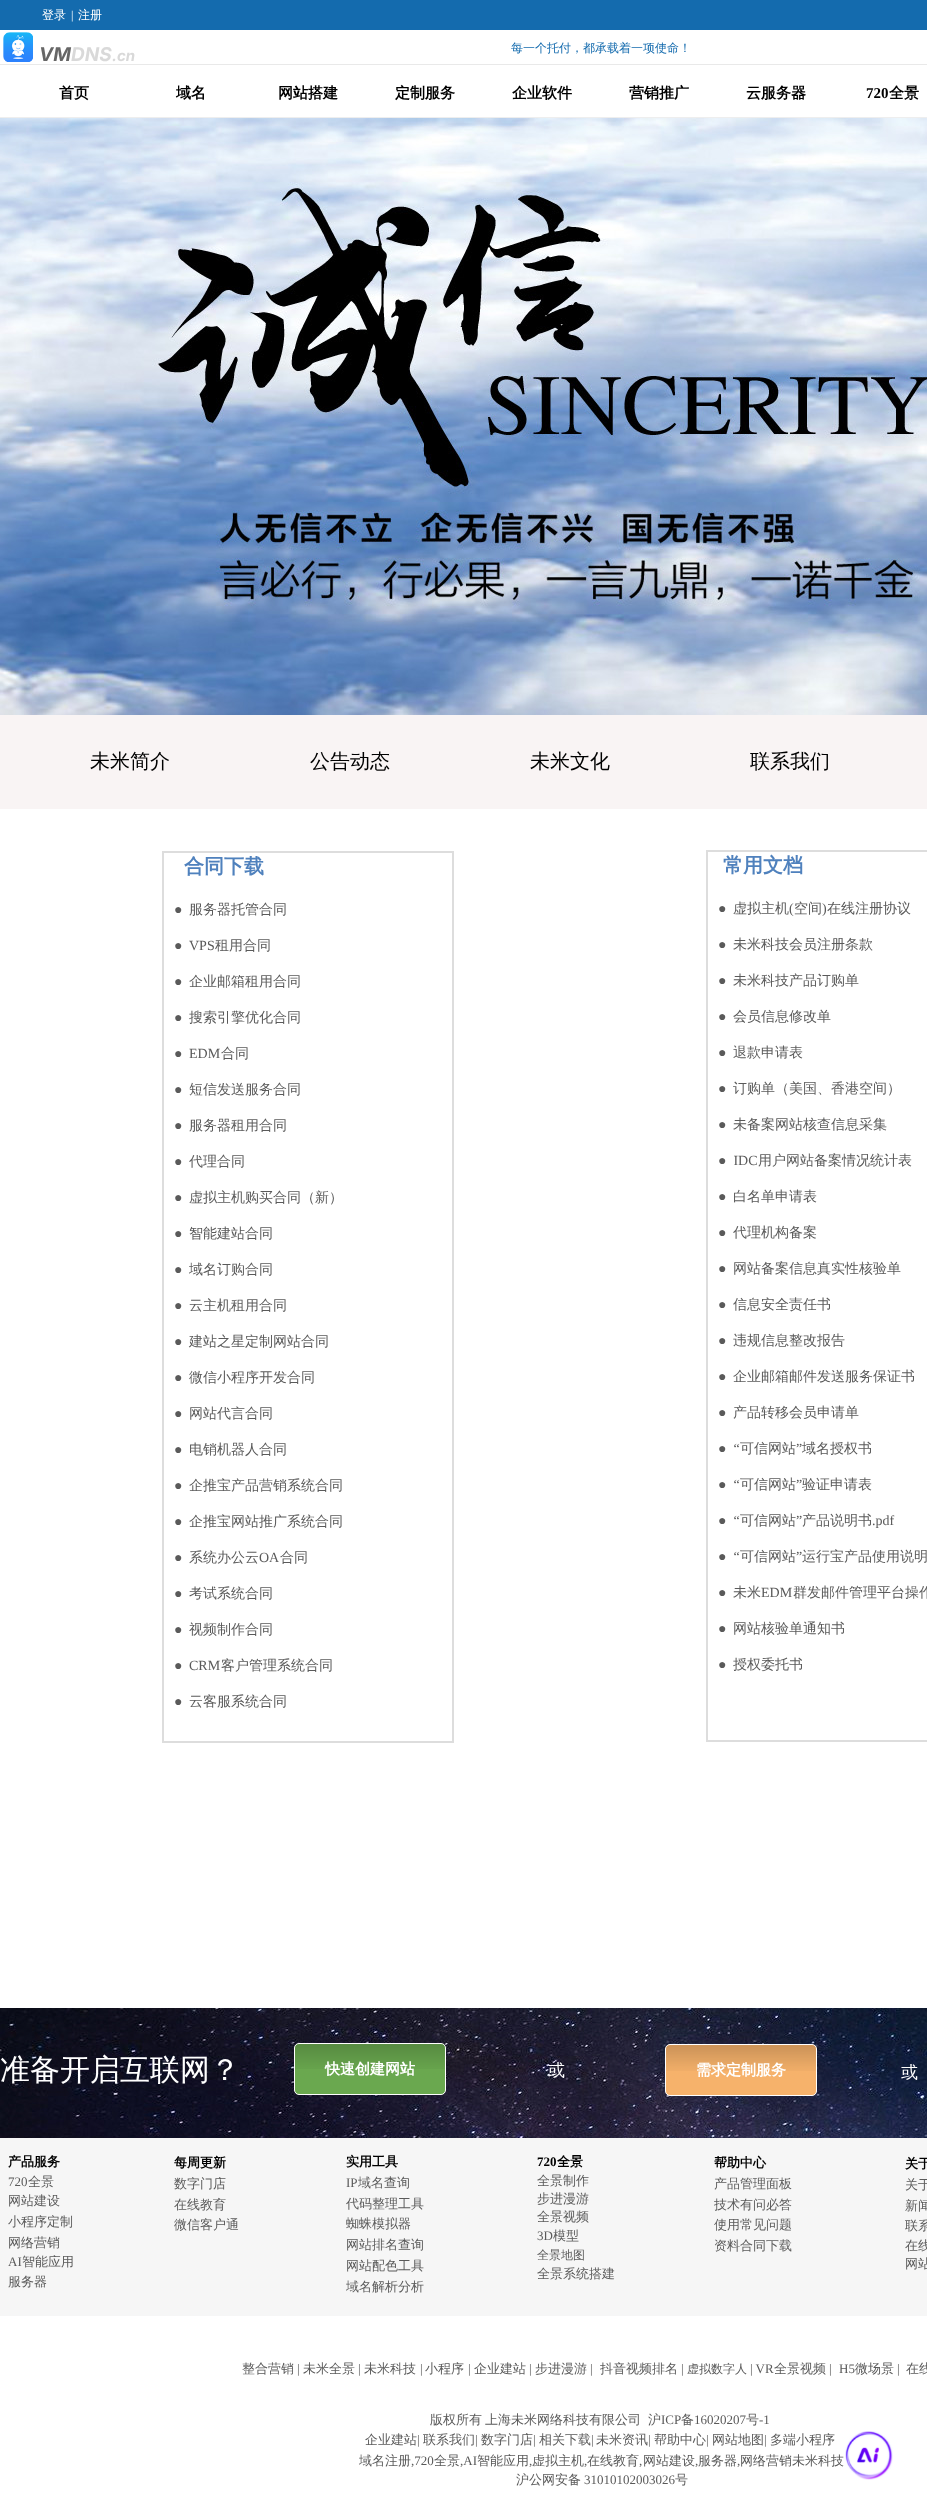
<svg xmlns="http://www.w3.org/2000/svg" width="927" height="2513" viewBox="0 0 927 2513">
  <rect width="100%" height="100%" fill="#ffffff"/>
  <rect x="0" y="0" width="927" height="30" fill="#146bae"/>
  <text x="42" y="19" font-family="WenQuanYi Zen Hei" font-size="12" font-weight="500" fill="#ffffff">登录</text>
  <text x="71" y="19" font-family="Liberation Serif" font-size="12" fill="#ffffff">|</text>
  <text x="78" y="19" font-family="WenQuanYi Zen Hei" font-size="12" font-weight="500" fill="#ffffff">注册</text>
  <image x="3" y="32" width="30" height="30" href="img1.png"/>
  <text x="39" y="61" font-family="Inter" font-size="19" font-weight="bold" font-style="italic" fill="#666666">VM</text>
  <text x="71" y="61" font-family="Inter" font-size="19" font-weight="bold" font-style="italic" fill="#d9d9d9">DNS</text>
  <text x="112" y="61" font-family="Inter" font-size="15" font-weight="bold" font-style="italic" fill="#d9d9d9">.cn</text>
  <text x="511" y="52" font-family="WenQuanYi Zen Hei" font-size="12" font-weight="500" fill="#146bae">每一个托付，都承载着一项使命！</text>
  <rect x="0" y="64" width="927" height="1" fill="#e9e9e9"/>
  <text x="59" y="98" font-family="WenQuanYi Zen Hei" font-size="15" font-weight="bold" fill="#000000">首页</text>
  <text x="176" y="98" font-family="WenQuanYi Zen Hei" font-size="15" font-weight="bold" fill="#000000">域名</text>
  <text x="278" y="98" font-family="WenQuanYi Zen Hei" font-size="15" font-weight="bold" fill="#000000">网站搭建</text>
  <text x="395" y="98" font-family="WenQuanYi Zen Hei" font-size="15" font-weight="bold" fill="#000000">定制服务</text>
  <text x="512" y="98" font-family="WenQuanYi Zen Hei" font-size="15" font-weight="bold" fill="#000000">企业软件</text>
  <text x="629" y="98" font-family="WenQuanYi Zen Hei" font-size="15" font-weight="bold" fill="#000000">营销推广</text>
  <text x="746" y="98" font-family="WenQuanYi Zen Hei" font-size="15" font-weight="bold" fill="#000000">云服务器</text>
  <text x="866" y="98" font-family="Liberation Serif" font-size="15" font-weight="bold" fill="#000000">720</text>
  <text x="889" y="98" font-family="WenQuanYi Zen Hei" font-size="15" font-weight="bold" fill="#000000">全景</text>
  <rect x="0" y="117" width="927" height="1" fill="#eeeeee"/>
  <image x="0" y="118" width="927" height="597" href="img2.png"/>
  <rect x="0" y="715" width="927" height="94" fill="#f9f4f4"/>
  <text x="90" y="768" font-family="WenQuanYi Zen Hei" font-size="20" font-weight="500" fill="#000000">未米简介</text>
  <text x="310" y="768" font-family="WenQuanYi Zen Hei" font-size="20" font-weight="500" fill="#000000">公告动态</text>
  <text x="530" y="768" font-family="WenQuanYi Zen Hei" font-size="20" font-weight="500" fill="#000000">未米文化</text>
  <text x="750" y="768" font-family="WenQuanYi Zen Hei" font-size="20" font-weight="500" fill="#000000">联系我们</text>
  <rect x="162" y="851" width="292" height="2" fill="#dddddd"/>
  <rect x="452" y="851" width="2" height="892" fill="#dddddd"/>
  <rect x="162" y="1741" width="292" height="2" fill="#dddddd"/>
  <rect x="162" y="851" width="2" height="892" fill="#dddddd"/>
  <text x="184" y="873" font-family="WenQuanYi Zen Hei" font-size="20" font-weight="bold" fill="#4f81bd">合同下载</text>
  <text x="174" y="914" font-family="Liberation Serif" font-size="14" fill="#5a5a5a">●</text>
  <text x="189" y="914" font-family="WenQuanYi Zen Hei" font-size="14" font-weight="500" fill="#5a5a5a">服务器托管合同</text>
  <text x="174" y="950" font-family="Liberation Serif" font-size="14" fill="#5a5a5a">●</text>
  <text x="189" y="950" font-family="Liberation Serif" font-size="14" fill="#5a5a5a">VPS</text>
  <text x="215" y="950" font-family="WenQuanYi Zen Hei" font-size="14" font-weight="500" fill="#5a5a5a">租用合同</text>
  <text x="174" y="986" font-family="Liberation Serif" font-size="14" fill="#5a5a5a">●</text>
  <text x="189" y="986" font-family="WenQuanYi Zen Hei" font-size="14" font-weight="500" fill="#5a5a5a">企业邮箱租用合同</text>
  <text x="174" y="1022" font-family="Liberation Serif" font-size="14" fill="#5a5a5a">●</text>
  <text x="189" y="1022" font-family="WenQuanYi Zen Hei" font-size="14" font-weight="500" fill="#5a5a5a">搜索引擎优化合同</text>
  <text x="174" y="1058" font-family="Liberation Serif" font-size="14" fill="#5a5a5a">●</text>
  <text x="189" y="1058" font-family="Liberation Serif" font-size="14" fill="#5a5a5a">EDM</text>
  <text x="221" y="1058" font-family="WenQuanYi Zen Hei" font-size="14" font-weight="500" fill="#5a5a5a">合同</text>
  <text x="174" y="1094" font-family="Liberation Serif" font-size="14" fill="#5a5a5a">●</text>
  <text x="189" y="1094" font-family="WenQuanYi Zen Hei" font-size="14" font-weight="500" fill="#5a5a5a">短信发送服务合同</text>
  <text x="174" y="1130" font-family="Liberation Serif" font-size="14" fill="#5a5a5a">●</text>
  <text x="189" y="1130" font-family="WenQuanYi Zen Hei" font-size="14" font-weight="500" fill="#5a5a5a">服务器租用合同</text>
  <text x="174" y="1166" font-family="Liberation Serif" font-size="14" fill="#5a5a5a">●</text>
  <text x="189" y="1166" font-family="WenQuanYi Zen Hei" font-size="14" font-weight="500" fill="#5a5a5a">代理合同</text>
  <text x="174" y="1202" font-family="Liberation Serif" font-size="14" fill="#5a5a5a">●</text>
  <text x="189" y="1202" font-family="WenQuanYi Zen Hei" font-size="14" font-weight="500" fill="#5a5a5a">虚拟主机购买合同（新）</text>
  <text x="174" y="1238" font-family="Liberation Serif" font-size="14" fill="#5a5a5a">●</text>
  <text x="189" y="1238" font-family="WenQuanYi Zen Hei" font-size="14" font-weight="500" fill="#5a5a5a">智能建站合同</text>
  <text x="174" y="1274" font-family="Liberation Serif" font-size="14" fill="#5a5a5a">●</text>
  <text x="189" y="1274" font-family="WenQuanYi Zen Hei" font-size="14" font-weight="500" fill="#5a5a5a">域名订购合同</text>
  <text x="174" y="1310" font-family="Liberation Serif" font-size="14" fill="#5a5a5a">●</text>
  <text x="189" y="1310" font-family="WenQuanYi Zen Hei" font-size="14" font-weight="500" fill="#5a5a5a">云主机租用合同</text>
  <text x="174" y="1346" font-family="Liberation Serif" font-size="14" fill="#5a5a5a">●</text>
  <text x="189" y="1346" font-family="WenQuanYi Zen Hei" font-size="14" font-weight="500" fill="#5a5a5a">建站之星定制网站合同</text>
  <text x="174" y="1382" font-family="Liberation Serif" font-size="14" fill="#5a5a5a">●</text>
  <text x="189" y="1382" font-family="WenQuanYi Zen Hei" font-size="14" font-weight="500" fill="#5a5a5a">微信小程序开发合同</text>
  <text x="174" y="1418" font-family="Liberation Serif" font-size="14" fill="#5a5a5a">●</text>
  <text x="189" y="1418" font-family="WenQuanYi Zen Hei" font-size="14" font-weight="500" fill="#5a5a5a">网站代言合同</text>
  <text x="174" y="1454" font-family="Liberation Serif" font-size="14" fill="#5a5a5a">●</text>
  <text x="189" y="1454" font-family="WenQuanYi Zen Hei" font-size="14" font-weight="500" fill="#5a5a5a">电销机器人合同</text>
  <text x="174" y="1490" font-family="Liberation Serif" font-size="14" fill="#5a5a5a">●</text>
  <text x="189" y="1490" font-family="WenQuanYi Zen Hei" font-size="14" font-weight="500" fill="#5a5a5a">企推宝产品营销系统合同</text>
  <text x="174" y="1526" font-family="Liberation Serif" font-size="14" fill="#5a5a5a">●</text>
  <text x="189" y="1526" font-family="WenQuanYi Zen Hei" font-size="14" font-weight="500" fill="#5a5a5a">企推宝网站推广系统合同</text>
  <text x="174" y="1562" font-family="Liberation Serif" font-size="14" fill="#5a5a5a">●</text>
  <text x="189" y="1562" font-family="WenQuanYi Zen Hei" font-size="14" font-weight="500" fill="#5a5a5a">系统办公云</text>
  <text x="259" y="1562" font-family="Liberation Serif" font-size="14" fill="#5a5a5a">OA</text>
  <text x="280" y="1562" font-family="WenQuanYi Zen Hei" font-size="14" font-weight="500" fill="#5a5a5a">合同</text>
  <text x="174" y="1598" font-family="Liberation Serif" font-size="14" fill="#5a5a5a">●</text>
  <text x="189" y="1598" font-family="WenQuanYi Zen Hei" font-size="14" font-weight="500" fill="#5a5a5a">考试系统合同</text>
  <text x="174" y="1634" font-family="Liberation Serif" font-size="14" fill="#5a5a5a">●</text>
  <text x="189" y="1634" font-family="WenQuanYi Zen Hei" font-size="14" font-weight="500" fill="#5a5a5a">视频制作合同</text>
  <text x="174" y="1670" font-family="Liberation Serif" font-size="14" fill="#5a5a5a">●</text>
  <text x="189" y="1670" font-family="Liberation Serif" font-size="14" fill="#5a5a5a">CRM</text>
  <text x="221" y="1670" font-family="WenQuanYi Zen Hei" font-size="14" font-weight="500" fill="#5a5a5a">客户管理系统合同</text>
  <text x="174" y="1706" font-family="Liberation Serif" font-size="14" fill="#5a5a5a">●</text>
  <text x="189" y="1706" font-family="WenQuanYi Zen Hei" font-size="14" font-weight="500" fill="#5a5a5a">云客服系统合同</text>
  <rect x="706" y="850" width="221" height="2" fill="#dddddd"/>
  <rect x="706" y="1740" width="221" height="2" fill="#dddddd"/>
  <rect x="706" y="850" width="2" height="892" fill="#dddddd"/>
  <text x="723" y="872" font-family="WenQuanYi Zen Hei" font-size="20" font-weight="bold" fill="#4f81bd">常用文档</text>
  <text x="718" y="913" font-family="Liberation Serif" font-size="14" fill="#5a5a5a">●</text>
  <text x="733" y="913" font-family="WenQuanYi Zen Hei" font-size="14" font-weight="500" fill="#5a5a5a">虚拟主机</text>
  <text x="789" y="913" font-family="Liberation Serif" font-size="14" fill="#5a5a5a">(</text>
  <text x="794" y="913" font-family="WenQuanYi Zen Hei" font-size="14" font-weight="500" fill="#5a5a5a">空间</text>
  <text x="822" y="913" font-family="Liberation Serif" font-size="14" fill="#5a5a5a">)</text>
  <text x="827" y="913" font-family="WenQuanYi Zen Hei" font-size="14" font-weight="500" fill="#5a5a5a">在线注册协议</text>
  <text x="718" y="949" font-family="Liberation Serif" font-size="14" fill="#5a5a5a">●</text>
  <text x="733" y="949" font-family="WenQuanYi Zen Hei" font-size="14" font-weight="500" fill="#5a5a5a">未米科技会员注册条款</text>
  <text x="718" y="985" font-family="Liberation Serif" font-size="14" fill="#5a5a5a">●</text>
  <text x="733" y="985" font-family="WenQuanYi Zen Hei" font-size="14" font-weight="500" fill="#5a5a5a">未米科技产品订购单</text>
  <text x="718" y="1021" font-family="Liberation Serif" font-size="14" fill="#5a5a5a">●</text>
  <text x="733" y="1021" font-family="WenQuanYi Zen Hei" font-size="14" font-weight="500" fill="#5a5a5a">会员信息修改单</text>
  <text x="718" y="1057" font-family="Liberation Serif" font-size="14" fill="#5a5a5a">●</text>
  <text x="733" y="1057" font-family="WenQuanYi Zen Hei" font-size="14" font-weight="500" fill="#5a5a5a">退款申请表</text>
  <text x="718" y="1093" font-family="Liberation Serif" font-size="14" fill="#5a5a5a">●</text>
  <text x="733" y="1093" font-family="WenQuanYi Zen Hei" font-size="14" font-weight="500" fill="#5a5a5a">订购单（美国、香港空间）</text>
  <text x="718" y="1129" font-family="Liberation Serif" font-size="14" fill="#5a5a5a">●</text>
  <text x="733" y="1129" font-family="WenQuanYi Zen Hei" font-size="14" font-weight="500" fill="#5a5a5a">未备案网站核查信息采集</text>
  <text x="718" y="1165" font-family="Liberation Serif" font-size="14" fill="#5a5a5a" xml:space="preserve">●  IDC</text>
  <text x="758" y="1165" font-family="WenQuanYi Zen Hei" font-size="14" font-weight="500" fill="#5a5a5a">用户网站备案情况统计表</text>
  <text x="718" y="1201" font-family="Liberation Serif" font-size="14" fill="#5a5a5a">●</text>
  <text x="733" y="1201" font-family="WenQuanYi Zen Hei" font-size="14" font-weight="500" fill="#5a5a5a">白名单申请表</text>
  <text x="718" y="1237" font-family="Liberation Serif" font-size="14" fill="#5a5a5a">●</text>
  <text x="733" y="1237" font-family="WenQuanYi Zen Hei" font-size="14" font-weight="500" fill="#5a5a5a">代理机构备案</text>
  <text x="718" y="1273" font-family="Liberation Serif" font-size="14" fill="#5a5a5a">●</text>
  <text x="733" y="1273" font-family="WenQuanYi Zen Hei" font-size="14" font-weight="500" fill="#5a5a5a">网站备案信息真实性核验单</text>
  <text x="718" y="1309" font-family="Liberation Serif" font-size="14" fill="#5a5a5a">●</text>
  <text x="733" y="1309" font-family="WenQuanYi Zen Hei" font-size="14" font-weight="500" fill="#5a5a5a">信息安全责任书</text>
  <text x="718" y="1345" font-family="Liberation Serif" font-size="14" fill="#5a5a5a">●</text>
  <text x="733" y="1345" font-family="WenQuanYi Zen Hei" font-size="14" font-weight="500" fill="#5a5a5a">违规信息整改报告</text>
  <text x="718" y="1381" font-family="Liberation Serif" font-size="14" fill="#5a5a5a">●</text>
  <text x="733" y="1381" font-family="WenQuanYi Zen Hei" font-size="14" font-weight="500" fill="#5a5a5a">企业邮箱邮件发送服务保证书</text>
  <text x="718" y="1417" font-family="Liberation Serif" font-size="14" fill="#5a5a5a">●</text>
  <text x="733" y="1417" font-family="WenQuanYi Zen Hei" font-size="14" font-weight="500" fill="#5a5a5a">产品转移会员申请单</text>
  <text x="718" y="1453" font-family="Liberation Serif" font-size="14" fill="#5a5a5a" xml:space="preserve">●  “</text>
  <text x="740" y="1453" font-family="WenQuanYi Zen Hei" font-size="14" font-weight="500" fill="#5a5a5a">可信网站</text>
  <text x="796" y="1453" font-family="Liberation Serif" font-size="14" fill="#5a5a5a">”</text>
  <text x="802" y="1453" font-family="WenQuanYi Zen Hei" font-size="14" font-weight="500" fill="#5a5a5a">域名授权书</text>
  <text x="718" y="1489" font-family="Liberation Serif" font-size="14" fill="#5a5a5a" xml:space="preserve">●  “</text>
  <text x="740" y="1489" font-family="WenQuanYi Zen Hei" font-size="14" font-weight="500" fill="#5a5a5a">可信网站</text>
  <text x="796" y="1489" font-family="Liberation Serif" font-size="14" fill="#5a5a5a">”</text>
  <text x="802" y="1489" font-family="WenQuanYi Zen Hei" font-size="14" font-weight="500" fill="#5a5a5a">验证申请表</text>
  <text x="718" y="1525" font-family="Liberation Serif" font-size="14" fill="#5a5a5a" xml:space="preserve">●  “</text>
  <text x="740" y="1525" font-family="WenQuanYi Zen Hei" font-size="14" font-weight="500" fill="#5a5a5a">可信网站</text>
  <text x="796" y="1525" font-family="Liberation Serif" font-size="14" fill="#5a5a5a">”</text>
  <text x="802" y="1525" font-family="WenQuanYi Zen Hei" font-size="14" font-weight="500" fill="#5a5a5a">产品说明书</text>
  <text x="872" y="1525" font-family="Liberation Serif" font-size="14" fill="#5a5a5a">.pdf</text>
  <text x="718" y="1561" font-family="Liberation Serif" font-size="14" fill="#5a5a5a" xml:space="preserve">●  “</text>
  <text x="740" y="1561" font-family="WenQuanYi Zen Hei" font-size="14" font-weight="500" fill="#5a5a5a">可信网站</text>
  <text x="796" y="1561" font-family="Liberation Serif" font-size="14" fill="#5a5a5a">”</text>
  <text x="802" y="1561" font-family="WenQuanYi Zen Hei" font-size="14" font-weight="500" fill="#5a5a5a">运行宝产品使用说明</text>
  <text x="718" y="1597" font-family="Liberation Serif" font-size="14" fill="#5a5a5a">●</text>
  <text x="733" y="1597" font-family="WenQuanYi Zen Hei" font-size="14" font-weight="500" fill="#5a5a5a">未米</text>
  <text x="761" y="1597" font-family="Liberation Serif" font-size="14" fill="#5a5a5a">EDM</text>
  <text x="793" y="1597" font-family="WenQuanYi Zen Hei" font-size="14" font-weight="500" fill="#5a5a5a">群发邮件管理平台操作</text>
  <text x="718" y="1633" font-family="Liberation Serif" font-size="14" fill="#5a5a5a">●</text>
  <text x="733" y="1633" font-family="WenQuanYi Zen Hei" font-size="14" font-weight="500" fill="#5a5a5a">网站核验单通知书</text>
  <text x="718" y="1669" font-family="Liberation Serif" font-size="14" fill="#5a5a5a">●</text>
  <text x="733" y="1669" font-family="WenQuanYi Zen Hei" font-size="14" font-weight="500" fill="#5a5a5a">授权委托书</text>
  <image x="0" y="2008" width="927" height="130" href="img3.png"/>
  <text x="0" y="2080" font-family="WenQuanYi Zen Hei" font-size="30" font-weight="500" fill="#ffffff">准备开启互联网？</text>
  <rect x="294.5" y="2043.5" width="151" height="51" rx="4.5" fill="#6aa84f" stroke="#ffffff"/>
  <image x="295" y="2044" width="150" height="25" href="img4.png"/>
  <text x="325" y="2074" font-family="WenQuanYi Zen Hei" font-size="15" font-weight="bold" fill="#ffffff">快速创建网站</text>
  <text x="548" y="2076" font-family="WenQuanYi Zen Hei" font-size="17" font-weight="500" fill="#ffffff">或</text>
  <rect x="665.5" y="2044.5" width="151" height="51" rx="4.5" fill="#f6b26b" stroke="#ffffff"/>
  <image x="666" y="2045" width="150" height="26" href="img5.png"/>
  <text x="696" y="2075" font-family="WenQuanYi Zen Hei" font-size="15" font-weight="bold" fill="#ffffff">需求定制服务</text>
  <text x="901" y="2078" font-family="WenQuanYi Zen Hei" font-size="17" font-weight="500" fill="#ffffff">或</text>
  <rect x="0" y="2138" width="927" height="178" fill="#f6f6f6"/>
  <text x="8" y="2166" font-family="WenQuanYi Zen Hei" font-size="13" font-weight="bold" fill="#000000">产品服务</text>
  <text x="8" y="2186" font-family="Liberation Serif" font-size="13" fill="#5a5a5a">720</text>
  <text x="28" y="2186" font-family="WenQuanYi Zen Hei" font-size="13" font-weight="500" fill="#5a5a5a">全景</text>
  <text x="8" y="2205" font-family="WenQuanYi Zen Hei" font-size="13" font-weight="500" fill="#5a5a5a">网站建设</text>
  <text x="8" y="2226" font-family="WenQuanYi Zen Hei" font-size="13" font-weight="500" fill="#5a5a5a">小程序定制</text>
  <text x="8" y="2247" font-family="WenQuanYi Zen Hei" font-size="13" font-weight="500" fill="#5a5a5a">网络营销</text>
  <text x="8" y="2266" font-family="Liberation Serif" font-size="13" fill="#5a5a5a">AI</text>
  <text x="22" y="2266" font-family="WenQuanYi Zen Hei" font-size="13" font-weight="500" fill="#5a5a5a">智能应用</text>
  <text x="8" y="2286" font-family="WenQuanYi Zen Hei" font-size="13" font-weight="500" fill="#5a5a5a">服务器</text>
  <text x="174" y="2167" font-family="WenQuanYi Zen Hei" font-size="13" font-weight="bold" fill="#000000">每周更新</text>
  <text x="174" y="2188" font-family="WenQuanYi Zen Hei" font-size="13" font-weight="500" fill="#5a5a5a">数字门店</text>
  <text x="174" y="2209" font-family="WenQuanYi Zen Hei" font-size="13" font-weight="500" fill="#5a5a5a">在线教育</text>
  <text x="174" y="2229" font-family="WenQuanYi Zen Hei" font-size="13" font-weight="500" fill="#5a5a5a">微信客户通</text>
  <text x="346" y="2166" font-family="WenQuanYi Zen Hei" font-size="13" font-weight="bold" fill="#000000">实用工具</text>
  <text x="346" y="2187" font-family="Liberation Serif" font-size="13" fill="#5a5a5a">IP</text>
  <text x="358" y="2187" font-family="WenQuanYi Zen Hei" font-size="13" font-weight="500" fill="#5a5a5a">域名查询</text>
  <text x="346" y="2208" font-family="WenQuanYi Zen Hei" font-size="13" font-weight="500" fill="#5a5a5a">代码整理工具</text>
  <text x="346" y="2228" font-family="WenQuanYi Zen Hei" font-size="13" font-weight="500" fill="#5a5a5a">蜘蛛模拟器</text>
  <text x="346" y="2249" font-family="WenQuanYi Zen Hei" font-size="13" font-weight="500" fill="#5a5a5a">网站排名查询</text>
  <text x="346" y="2270" font-family="WenQuanYi Zen Hei" font-size="13" font-weight="500" fill="#5a5a5a">网站配色工具</text>
  <text x="346" y="2291" font-family="WenQuanYi Zen Hei" font-size="13" font-weight="500" fill="#5a5a5a">域名解析分析</text>
  <text x="537" y="2166" font-family="Liberation Serif" font-size="13" font-weight="bold" fill="#000000">720</text>
  <text x="557" y="2166" font-family="WenQuanYi Zen Hei" font-size="13" font-weight="bold" fill="#000000">全景</text>
  <text x="537" y="2185" font-family="WenQuanYi Zen Hei" font-size="13" font-weight="500" fill="#5a5a5a">全景制作</text>
  <text x="537" y="2203" font-family="WenQuanYi Zen Hei" font-size="13" font-weight="500" fill="#5a5a5a">步进漫游</text>
  <text x="537" y="2221" font-family="WenQuanYi Zen Hei" font-size="13" font-weight="500" fill="#5a5a5a">全景视频</text>
  <text x="537" y="2240" font-family="Liberation Serif" font-size="13" fill="#5a5a5a">3D</text>
  <text x="553" y="2240" font-family="WenQuanYi Zen Hei" font-size="13" font-weight="500" fill="#5a5a5a">模型</text>
  <text x="537" y="2259" font-family="WenQuanYi Zen Hei" font-size="12" font-weight="500" fill="#5a5a5a">全景地图</text>
  <text x="537" y="2278" font-family="WenQuanYi Zen Hei" font-size="13" font-weight="500" fill="#5a5a5a">全景系统搭建</text>
  <text x="714" y="2167" font-family="WenQuanYi Zen Hei" font-size="13" font-weight="bold" fill="#000000">帮助中心</text>
  <text x="714" y="2188" font-family="WenQuanYi Zen Hei" font-size="13" font-weight="500" fill="#5a5a5a">产品管理面板</text>
  <text x="714" y="2209" font-family="WenQuanYi Zen Hei" font-size="13" font-weight="500" fill="#5a5a5a">技术有问必答</text>
  <text x="714" y="2229" font-family="WenQuanYi Zen Hei" font-size="13" font-weight="500" fill="#5a5a5a">使用常见问题</text>
  <text x="714" y="2250" font-family="WenQuanYi Zen Hei" font-size="13" font-weight="500" fill="#5a5a5a">资料合同下载</text>
  <text x="905" y="2168" font-family="WenQuanYi Zen Hei" font-size="13" font-weight="bold" fill="#000000">关于</text>
  <text x="905" y="2189" font-family="WenQuanYi Zen Hei" font-size="13" font-weight="500" fill="#5a5a5a">关于</text>
  <text x="905" y="2210" font-family="WenQuanYi Zen Hei" font-size="13" font-weight="500" fill="#5a5a5a">新闻</text>
  <text x="905" y="2230" font-family="WenQuanYi Zen Hei" font-size="13" font-weight="500" fill="#5a5a5a">联系</text>
  <text x="905" y="2250" font-family="WenQuanYi Zen Hei" font-size="13" font-weight="500" fill="#5a5a5a">在线</text>
  <text x="905" y="2268" font-family="WenQuanYi Zen Hei" font-size="13" font-weight="500" fill="#5a5a5a">网站</text>
  <text x="242" y="2373" font-family="WenQuanYi Zen Hei" font-size="13" font-weight="500" fill="#5a5a5a">整合营销</text>
  <text x="297" y="2373" font-family="Liberation Serif" font-size="13" fill="#5a5a5a">|</text>
  <text x="303" y="2373" font-family="WenQuanYi Zen Hei" font-size="13" font-weight="500" fill="#5a5a5a">未米全景</text>
  <text x="358" y="2373" font-family="Liberation Serif" font-size="13" fill="#5a5a5a">|</text>
  <text x="364" y="2373" font-family="WenQuanYi Zen Hei" font-size="13" font-weight="500" fill="#5a5a5a">未米科技</text>
  <text x="420" y="2373" font-family="Liberation Serif" font-size="13" fill="#5a5a5a">|</text>
  <text x="425" y="2373" font-family="WenQuanYi Zen Hei" font-size="13" font-weight="500" fill="#5a5a5a">小程序</text>
  <text x="468" y="2373" font-family="Liberation Serif" font-size="13" fill="#5a5a5a">|</text>
  <text x="474" y="2373" font-family="WenQuanYi Zen Hei" font-size="13" font-weight="500" fill="#5a5a5a">企业建站</text>
  <text x="529" y="2373" font-family="Liberation Serif" font-size="13" fill="#5a5a5a">|</text>
  <text x="535" y="2373" font-family="WenQuanYi Zen Hei" font-size="13" font-weight="500" fill="#5a5a5a">步进漫游</text>
  <text x="590" y="2373" font-family="Liberation Serif" font-size="13" fill="#5a5a5a">|</text>
  <text x="600" y="2373" font-family="WenQuanYi Zen Hei" font-size="13" font-weight="500" fill="#5a5a5a">抖音视频排名</text>
  <text x="681" y="2373" font-family="Liberation Serif" font-size="13" fill="#5a5a5a">|</text>
  <text x="687" y="2373" font-family="WenQuanYi Zen Hei" font-size="12" font-weight="500" fill="#5a5a5a">虚拟数字人</text>
  <text x="750" y="2373" font-family="Liberation Serif" font-size="13" fill="#5a5a5a">| VR</text>
  <text x="774" y="2373" font-family="WenQuanYi Zen Hei" font-size="13" font-weight="500" fill="#5a5a5a">全景视频</text>
  <text x="829" y="2373" font-family="Liberation Serif" font-size="13" fill="#5a5a5a">|</text>
  <text x="839" y="2373" font-family="Liberation Serif" font-size="13" fill="#5a5a5a">H5</text>
  <text x="855" y="2373" font-family="WenQuanYi Zen Hei" font-size="13" font-weight="500" fill="#5a5a5a">微场景</text>
  <text x="897" y="2373" font-family="Liberation Serif" font-size="13" fill="#5a5a5a">|</text>
  <text x="906" y="2373" font-family="WenQuanYi Zen Hei" font-size="13" font-weight="500" fill="#5a5a5a">在线</text>
  <text x="430" y="2424" word-spacing="-1" font-family="WenQuanYi Zen Hei" font-size="13" font-weight="500" fill="#5a5a5a">版权所有 上海未米网络科技有限</text>
  <text x="615" y="2424" font-family="WenQuanYi Zen Hei" font-size="13" font-weight="500" fill="#5a5a5a">公司</text>
  <text x="648" y="2424" font-family="WenQuanYi Zen Hei" font-size="13" font-weight="500" fill="#5a5a5a">沪</text>
  <text x="661" y="2424" font-family="Liberation Serif" font-size="13" fill="#5a5a5a">ICP</text>
  <text x="681" y="2424" font-family="WenQuanYi Zen Hei" font-size="13" font-weight="500" fill="#5a5a5a">备</text>
  <text x="694" y="2424" font-family="Liberation Serif" font-size="13" fill="#5a5a5a">16020207</text>
  <text x="746" y="2424" font-family="WenQuanYi Zen Hei" font-size="13" font-weight="500" fill="#5a5a5a">号</text>
  <text x="759" y="2424" font-family="Liberation Serif" font-size="13" fill="#5a5a5a">-1</text>
  <text x="365" y="2444" font-family="WenQuanYi Zen Hei" font-size="13" font-weight="500" fill="#5a5a5a">企业建站</text>
  <text x="417" y="2444" font-family="Liberation Serif" font-size="13" fill="#5a5a5a">|</text>
  <text x="423" y="2444" font-family="WenQuanYi Zen Hei" font-size="13" font-weight="500" fill="#5a5a5a">联系我们</text>
  <text x="475" y="2444" font-family="Liberation Serif" font-size="13" fill="#5a5a5a">|</text>
  <text x="481" y="2444" font-family="WenQuanYi Zen Hei" font-size="13" font-weight="500" fill="#5a5a5a">数字门店</text>
  <text x="533" y="2444" font-family="Liberation Serif" font-size="13" fill="#5a5a5a">|</text>
  <text x="539" y="2444" font-family="WenQuanYi Zen Hei" font-size="13" font-weight="500" fill="#5a5a5a">相关下载</text>
  <text x="591" y="2444" font-family="Liberation Serif" font-size="13" fill="#5a5a5a">|</text>
  <text x="596" y="2444" font-family="WenQuanYi Zen Hei" font-size="13" font-weight="500" fill="#5a5a5a">未米资讯</text>
  <text x="648" y="2444" font-family="Liberation Serif" font-size="13" fill="#5a5a5a">|</text>
  <text x="654" y="2444" font-family="WenQuanYi Zen Hei" font-size="13" font-weight="500" fill="#5a5a5a">帮助中心</text>
  <text x="706" y="2444" font-family="Liberation Serif" font-size="13" fill="#5a5a5a">|</text>
  <text x="712" y="2444" font-family="WenQuanYi Zen Hei" font-size="13" font-weight="500" fill="#5a5a5a">网站地图</text>
  <text x="764" y="2444" font-family="Liberation Serif" font-size="13" fill="#5a5a5a">|</text>
  <text x="770" y="2444" font-family="WenQuanYi Zen Hei" font-size="13" font-weight="500" fill="#5a5a5a">多端小程序</text>
  <text x="359" y="2465" font-family="WenQuanYi Zen Hei" font-size="13" font-weight="500" fill="#5a5a5a">域名注册</text>
  <text x="411" y="2465" font-family="Liberation Serif" font-size="13" fill="#5a5a5a">,720</text>
  <text x="434" y="2465" font-family="WenQuanYi Zen Hei" font-size="13" font-weight="500" fill="#5a5a5a">全景</text>
  <text x="460" y="2465" font-family="Liberation Serif" font-size="13" fill="#5a5a5a">,AI</text>
  <text x="477" y="2465" font-family="WenQuanYi Zen Hei" font-size="13" font-weight="500" fill="#5a5a5a">智能应用</text>
  <text x="529" y="2465" font-family="Liberation Serif" font-size="13" fill="#5a5a5a">,</text>
  <text x="532" y="2465" font-family="WenQuanYi Zen Hei" font-size="13" font-weight="500" fill="#5a5a5a">虚拟主机</text>
  <text x="584" y="2465" font-family="Liberation Serif" font-size="13" fill="#5a5a5a">,</text>
  <text x="587" y="2465" font-family="WenQuanYi Zen Hei" font-size="13" font-weight="500" fill="#5a5a5a">在线教育</text>
  <text x="639" y="2465" font-family="Liberation Serif" font-size="13" fill="#5a5a5a">,</text>
  <text x="643" y="2465" font-family="WenQuanYi Zen Hei" font-size="13" font-weight="500" fill="#5a5a5a">网站建设</text>
  <text x="695" y="2465" font-family="Liberation Serif" font-size="13" fill="#5a5a5a">,</text>
  <text x="698" y="2465" font-family="WenQuanYi Zen Hei" font-size="13" font-weight="500" fill="#5a5a5a">服务器</text>
  <text x="737" y="2465" font-family="Liberation Serif" font-size="13" fill="#5a5a5a">,</text>
  <text x="740" y="2465" font-family="WenQuanYi Zen Hei" font-size="13" font-weight="500" fill="#5a5a5a">网络营销未米科技</text>
  <text x="516" y="2484" font-family="WenQuanYi Zen Hei" font-size="13" font-weight="500" fill="#5a5a5a">沪公网安备</text>
  <text x="584" y="2484" font-family="Liberation Serif" font-size="13" fill="#5a5a5a">31010102003026</text>
  <text x="675" y="2484" font-family="WenQuanYi Zen Hei" font-size="13" font-weight="500" fill="#5a5a5a">号</text>
  <image x="845" y="2431" width="48" height="49" href="img6.png"/>
</svg>
